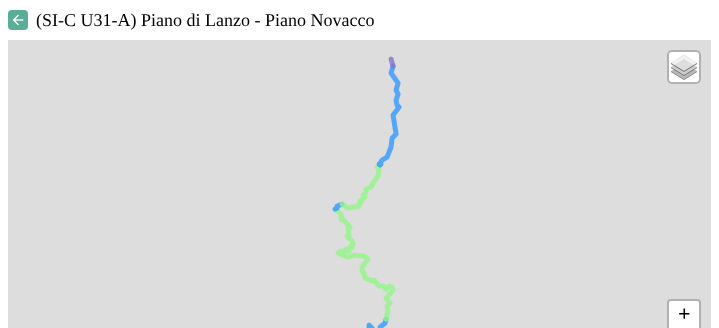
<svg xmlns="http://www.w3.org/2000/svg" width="719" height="328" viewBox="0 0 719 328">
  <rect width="100%" height="100%" fill="#ffffff"/>
  <rect x="8" y="10" width="20" height="20" rx="4" fill="#5aad97"/>
  <image x="12" y="14" width="12" height="12" href="img1.png"/>
  <text x="36" y="26" font-family="Liberation Serif" font-size="18" fill="#000000">(SI-C U31-A) Piano di Lanzo - Piano Novacco</text>
  <rect x="8" y="40" width="703" height="288" fill="#dddddd"/>
  <image x="332" y="56" width="70" height="272" href="img2.png"/>
  <rect x="668" y="51" width="32" height="32" rx="4" fill="#ffffff" stroke="#b1b1b1" stroke-width="2"/>
  <image x="671" y="55" width="26" height="25" href="img3.png"/>
  <rect x="668" y="300" width="32" height="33" rx="3" fill="none" stroke="#b1b1b1" stroke-width="2"/>
  <path d="M671 301H697C698 301 699 302 699 303V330H669V303C669 302 670 301 671 301Z" fill="#ffffff"/>
  <text x="678" y="321" font-family="Liberation Serif" font-size="22" font-weight="bold" fill="#000000">+</text>
</svg>
